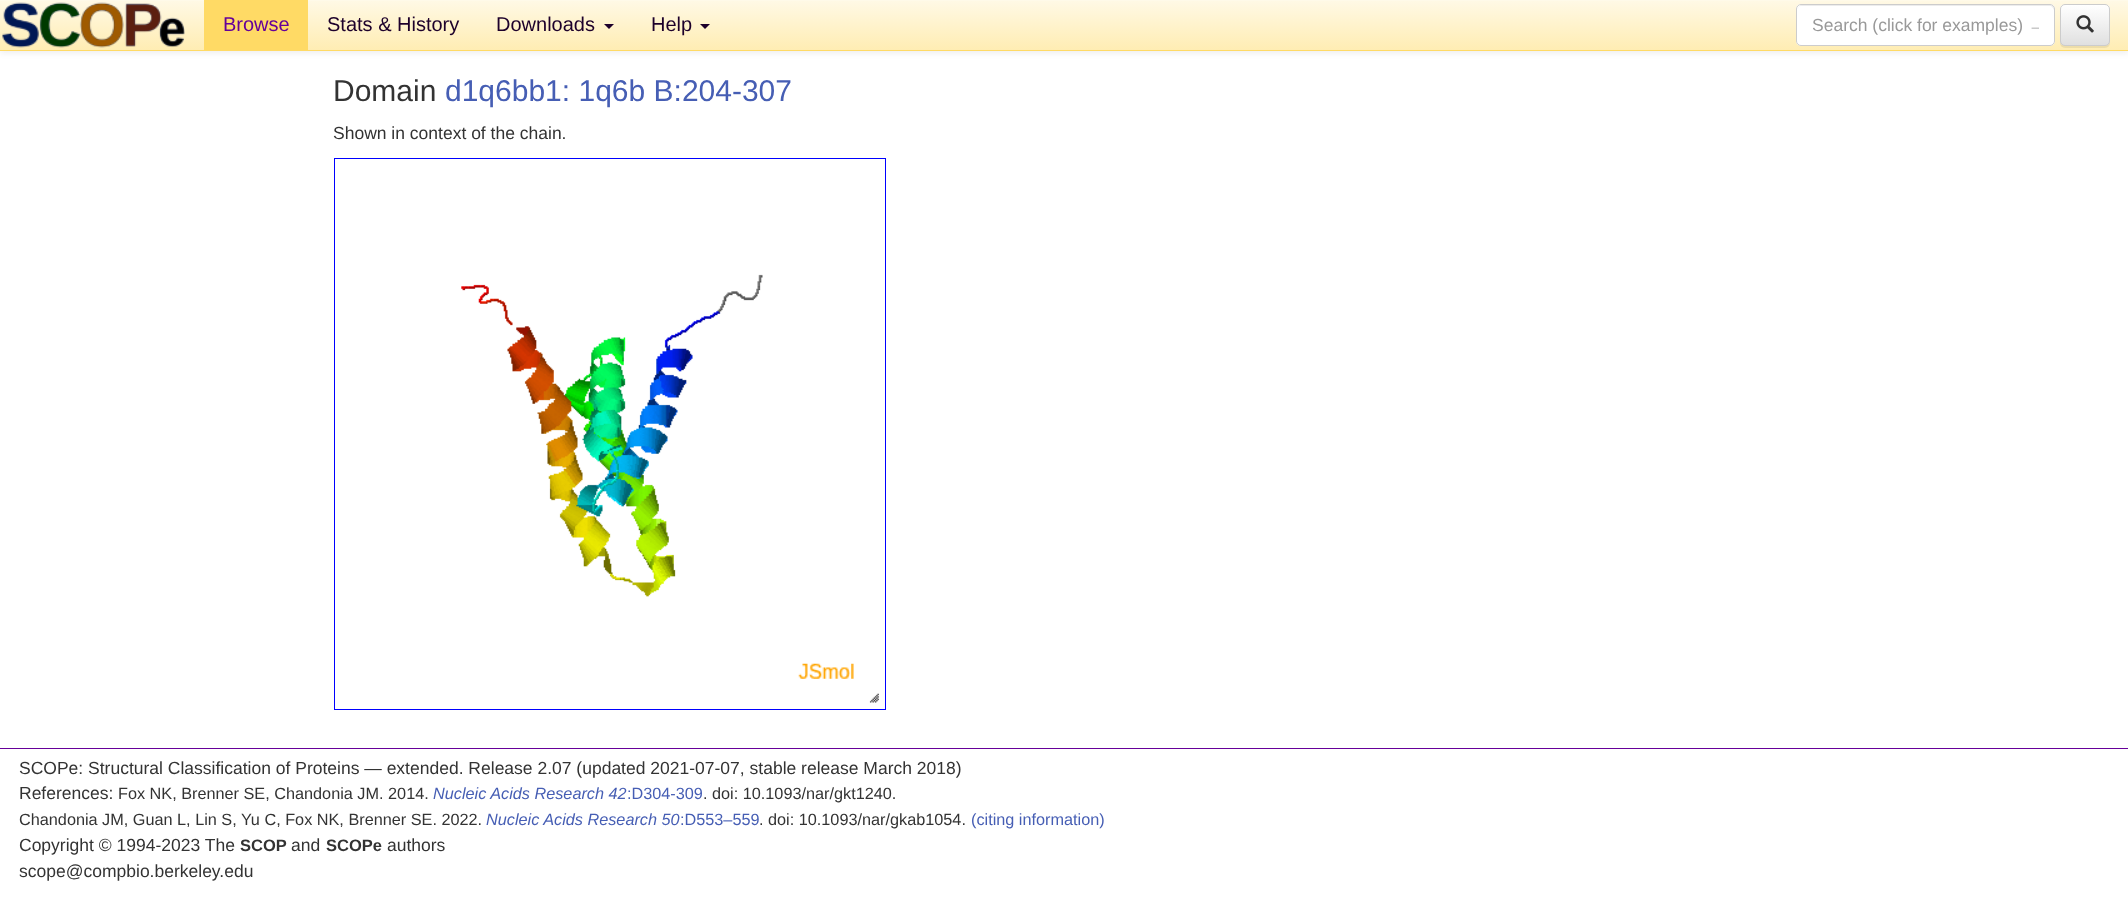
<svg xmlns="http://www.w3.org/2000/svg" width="2128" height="906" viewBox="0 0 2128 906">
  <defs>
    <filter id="blur1" x="-50%" y="-200%" width="200%" height="500%"><feGaussianBlur stdDeviation="3"/></filter>
    <linearGradient id="g1" gradientUnits="userSpaceOnUse" x1="1064" y1="0" x2="1064" y2="50"><stop offset="0" stop-color="#fff9e6"/><stop offset="1" stop-color="#ffedb3"/></linearGradient>
    <clipPath id="clip1"><rect x="1813" y="15" width="226" height="20"/></clipPath>
    <filter id="blur2" x="-50%" y="-200%" width="200%" height="500%"><feGaussianBlur stdDeviation="0.5"/></filter>
    <clipPath id="clip2"><rect x="2060" y="4" width="50" height="42" rx="5"/></clipPath>
    <linearGradient id="g2" gradientUnits="userSpaceOnUse" x1="2085" y1="5" x2="2085" y2="45"><stop offset="0" stop-color="#ffffff"/><stop offset="1" stop-color="#e0e0e0"/></linearGradient>
  </defs>
  <rect width="100%" height="100%" fill="#ffffff"/>
  <rect x="0" y="1" width="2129" height="52" fill="#000000" fill-opacity="0.07" filter="url(#blur1)"/>
  <rect x="0" y="1" width="2128" height="49" fill="url(#g1)"/>
  <rect x="0" y="0" width="2128" height="1" fill="#fffae9"/>
  <rect x="0" y="50" width="2128" height="1" fill="#ffda65"/>
  <image x="2" y="2" width="183" height="46" href="img1.png"/>
  <rect x="204" y="0" width="104" height="50" fill="#ffda65"/>
  <text x="223" y="31" font-family="Liberation Sans" font-size="20" fill="#660099">Browse</text>
  <text x="327" y="31" font-family="Liberation Sans" font-size="20" fill="#1d002b">Stats &amp; History</text>
  <text x="496" y="31" font-family="Liberation Sans" font-size="20" fill="#1d002b">Downloads</text>
  <path d="M604 24H614L609 29Z" fill="#1d002b"/>
  <text x="651" y="31" font-family="Liberation Sans" font-size="20" fill="#1d002b">Help</text>
  <path d="M700 24H710L705 29Z" fill="#1d002b"/>
  <rect x="1796" y="4" width="259" height="42" rx="5" fill="#ffffff"/>
  <path d="M1801 6H2051L2053 8L2054 10V9C2054 7 2052 5 2050 5H1802C1800 5 1798 7 1798 9V10C1798 8 1799 6 1801 6Z" fill="#ececec"/>
  <rect x="1796.5" y="4.5" width="258" height="41" rx="4.5" fill="none" stroke="#cccccc"/>
  <g clip-path="url(#clip1)">
    <text x="1812" y="31" font-family="Liberation Sans" font-size="17.5" fill="#999999">Search (click for examples) →</text>
  </g>
  <rect x="2060" y="5" width="50" height="43" rx="5" fill="#000000" fill-opacity="0.07" filter="url(#blur2)"/>
  <g clip-path="url(#clip2)">
    <rect x="2060" y="5" width="50" height="40" fill="url(#g2)"/>
  </g>
  <rect x="2060.5" y="4.5" width="49" height="41" rx="4.5" fill="none" stroke="#cccccc"/>
  <image x="2076" y="15" width="18" height="18" href="img2.png"/>
  <text x="333" y="101" font-family="Liberation Sans" font-size="30" fill="#333333">Domain</text>
  <text x="445" y="101" font-family="Liberation Sans" font-size="30" fill="#465eb4">d1q6bb1: 1q6b B:204-307</text>
  <text x="333" y="139" font-family="Liberation Sans" font-size="17.5" fill="#333333">Shown in context of the chain.</text>
  <rect x="334.5" y="158.5" width="551" height="551" fill="none" stroke="#0000ff"/>
  <image x="461" y="274" width="393" height="405" href="img3.png"/>
  <image x="869" y="693" width="10" height="10" href="img4.png"/>
  <rect x="0" y="748" width="2128" height="1" fill="#660099"/>
  <text x="19" y="774" font-family="Liberation Sans" font-size="17.5" fill="#333333">SCOPe: Structural Classification of Proteins — extended. Release 2.07 (updated 2021-07-07, stable release March 2018)</text>
  <text x="19" y="799" font-family="Liberation Sans" font-size="17.5" fill="#333333">References:</text>
  <text x="118" y="799" font-family="Liberation Sans" font-size="16.25" fill="#333333">Fox NK, Brenner SE, Chandonia JM. 2014.</text>
  <text x="433" y="799" font-family="Liberation Sans" font-size="16.25" font-style="italic" fill="#465eb4">Nucleic Acids Research 42</text>
  <text x="627" y="799" font-family="Liberation Sans" font-size="16.25" fill="#465eb4">:D304-309</text>
  <text x="703" y="799" font-family="Liberation Sans" font-size="16.25" fill="#333333">. doi: 10.1093/nar/gkt1240.</text>
  <text x="19" y="825" font-family="Liberation Sans" font-size="16.25" fill="#333333">Chandonia JM, Guan L, Lin S, Yu C, Fox NK, Brenner SE. 2022.</text>
  <text x="486" y="825" font-family="Liberation Sans" font-size="16.25" font-style="italic" fill="#465eb4">Nucleic Acids Research 50</text>
  <text x="680" y="825" font-family="Liberation Sans" font-size="16.25" fill="#465eb4">:D553–559</text>
  <text x="759" y="825" font-family="Liberation Sans" font-size="16.25" fill="#333333">. doi: 10.1093/nar/gkab1054.</text>
  <text x="971" y="825" font-family="Liberation Sans" font-size="16.25" fill="#465eb4">(citing information)</text>
  <text x="19" y="851" font-family="Liberation Sans" font-size="17.5" fill="#333333">Copyright © 1994-2023 The</text>
  <text x="240" y="851" font-family="Liberation Sans" font-size="16.5" font-weight="bold" fill="#333333">SCOP</text>
  <text x="291" y="851" font-family="Liberation Sans" font-size="17.5" fill="#333333">and</text>
  <text x="326" y="851" font-family="Liberation Sans" font-size="16.5" font-weight="bold" fill="#333333">SCOPe</text>
  <text x="387" y="851" font-family="Liberation Sans" font-size="17.5" fill="#333333">authors</text>
  <text x="19" y="877" font-family="Liberation Sans" font-size="17.5" fill="#333333">scope@compbio.berkeley.edu</text>
</svg>
